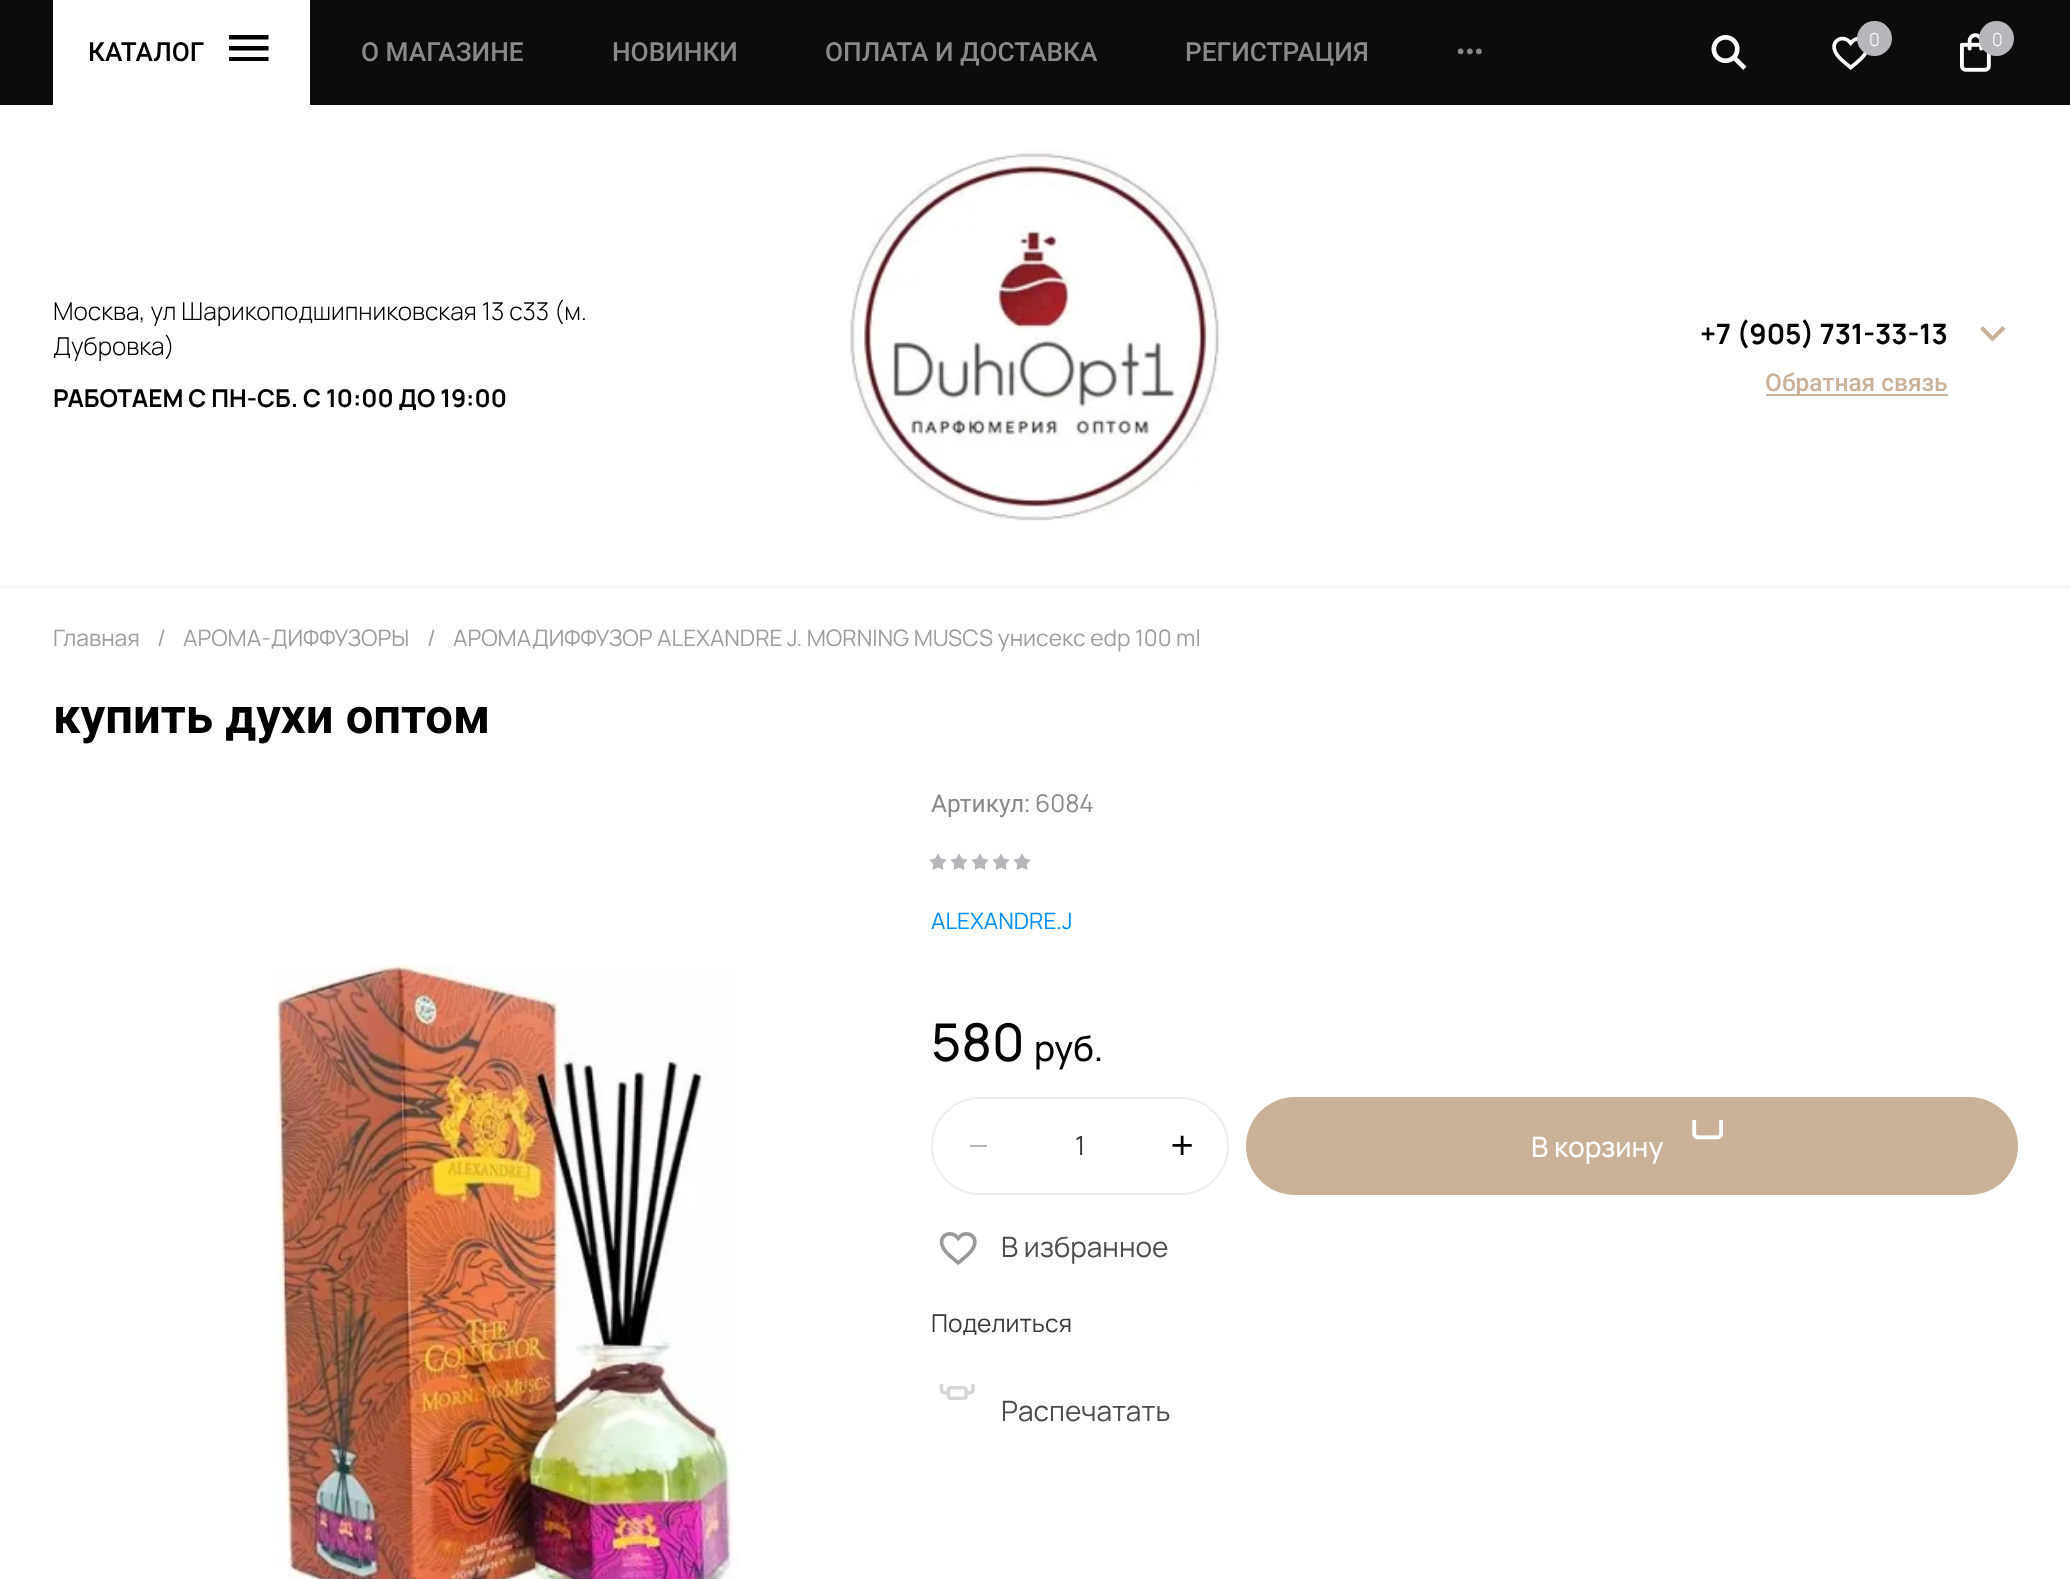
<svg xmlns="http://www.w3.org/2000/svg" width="2070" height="1579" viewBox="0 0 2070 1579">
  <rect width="100%" height="100%" fill="#ffffff"/>
  <rect x="0" y="0" width="2070" height="105" fill="#0c0c0c"/>
  <image x="1711" y="35" width="36" height="35" href="img1.png"/>
  <image x="1832" y="36" width="35" height="34" href="img2.png"/>
  <circle cx="1874.5" cy="38.5" r="17.5" fill="#b6b7ba"/>
  <text x="1869" y="46" font-family="Manrope" font-size="18" font-weight="300" fill="#ffffff">0</text>
  <image x="1960" y="33" width="31" height="39" href="img3.png"/>
  <circle cx="1996.5" cy="38.5" r="17.5" fill="#b6b7ba"/>
  <text x="1992" y="46" font-family="Manrope" font-size="18" font-weight="300" fill="#ffffff">0</text>
  <rect x="53" y="0" width="257" height="105" fill="#ffffff"/>
  <text x="88" y="61" font-family="Roboto" font-size="26.25" font-weight="500" fill="#000000">КАТАЛОГ</text>
  <path d="M268.5 61H229V57H268.5ZM268.5 50.5H229V46H268.5ZM268.5 39.5H229V35H268.5Z" fill="#000000"/>
  <text x="361" y="61" font-family="Roboto" font-size="26.25" font-weight="500" fill="#898989">О МАГАЗИНЕ</text>
  <text x="612" y="61" font-family="Roboto" font-size="26.25" font-weight="500" fill="#898989">НОВИНКИ</text>
  <text x="825" y="61" font-family="Roboto" font-size="26.25" font-weight="500" fill="#898989">ОПЛАТА И ДОСТАВКА</text>
  <text x="1185" y="61" font-family="Roboto" font-size="26.25" font-weight="500" fill="#898989">РЕГИСТРАЦИЯ</text>
  <text x="1456" y="61" font-family="Roboto" font-size="26.25" font-weight="500" fill="#898989">•••</text>
  <rect x="0" y="586" width="2070" height="2" fill="#f6f6f9"/>
  <text x="53" y="320" font-family="Manrope" font-size="24.5" font-weight="300" fill="#000000">Москва, ул Шарикоподшипниковская 13 с33 (м.</text>
  <text x="53" y="355" font-family="Manrope" font-size="24.5" font-weight="300" fill="#000000">Дубровка)</text>
  <text x="53" y="407" font-family="Manrope" font-size="24.5" font-weight="bold" fill="#000000">РАБОТАЕМ С ПН-СБ. С 10:00 ДО 19:00</text>
  <image x="850" y="149" width="373" height="372" href="img4.png"/>
  <text x="1700" y="344" font-family="Manrope" font-size="28" font-weight="bold" fill="#000000">+7 (905) 731-33-13</text>
  <rect x="1766" y="394" width="182" height="2" fill="#cab19a"/>
  <text x="1765" y="391" font-family="Roboto" font-size="24.5" font-weight="500" fill="#cab19a">Обратная связь</text>
  <path d="M1992.5 341.5L2005.5 329L2002.5 326L1992.5 336L1983 326L1980 329Z" fill="#cab19a"/>
  <text x="53" y="646" font-family="Manrope" font-size="22.75" fill="#9d9d9d">Главная</text>
  <text x="157" y="646" font-family="Manrope" font-size="22.75" fill="#9d9d9d">/</text>
  <text x="183" y="646" font-family="Manrope" font-size="22.75" fill="#9d9d9d">АРОМА-ДИФФУЗОРЫ</text>
  <text x="427" y="646" font-family="Manrope" font-size="22.75" fill="#9d9d9d">/</text>
  <text x="453" y="646" font-family="Manrope" font-size="22.75" fill="#9d9d9d">АРОМАДИФФУЗОР ALEXANDRE J. MORNING MUSCS унисекс edp 100 ml</text>
  <text x="53" y="733" font-family="Roboto" font-size="49" font-weight="bold" fill="#000000">купить духи оптом</text>
  <image x="269" y="964" width="470" height="615" href="img5.png"/>
  <text x="931" y="812" font-family="Roboto" font-size="24.5" fill="#898989">Артикул:</text>
  <text x="1035" y="812" font-family="Manrope" font-size="24.5" fill="#898989">6084</text>
  <image x="929" y="853" width="102" height="17" href="img6.png"/>
  <text x="931" y="929" font-family="Manrope" font-size="22.75" fill="#008efc">ALEXANDRE.J</text>
  <text x="931" y="1061" font-family="Manrope" font-size="52" font-weight="500" fill="#000000">580</text>
  <text x="1034" y="1061" font-family="Manrope" font-size="35" font-weight="500" fill="#000000">руб.</text>
  <rect x="932" y="1098" width="296" height="96" rx="48" fill="none" stroke="#ededf3" stroke-width="2"/>
  <rect x="970" y="1145" width="17" height="2" fill="#b6b7ba"/>
  <text x="1075" y="1155" font-family="Manrope" font-size="26.25" fill="#3a3a3a">1</text>
  <image x="1172" y="1135" width="20" height="20" href="img7.png"/>
  <rect x="1246" y="1097" width="772" height="98" rx="49" fill="#cab19a"/>
  <image x="1692" y="1120" width="32" height="20" href="img8.png"/>
  <text x="1531" y="1157" font-family="Manrope" font-size="28" font-weight="500" fill="#ffffff">В корзину</text>
  <image x="939" y="1232" width="38" height="34" href="img9.png"/>
  <text x="1001" y="1257" font-family="Manrope" font-size="28" fill="#4d4d4d">В избранное</text>
  <text x="931" y="1332" font-family="Manrope" font-size="24.5" fill="#3a3a3a">Поделиться</text>
  <image x="939" y="1384" width="36" height="16" href="img10.png"/>
  <text x="1001" y="1421" font-family="Manrope" font-size="28" fill="#4d4d4d">Распечатать</text>
</svg>
